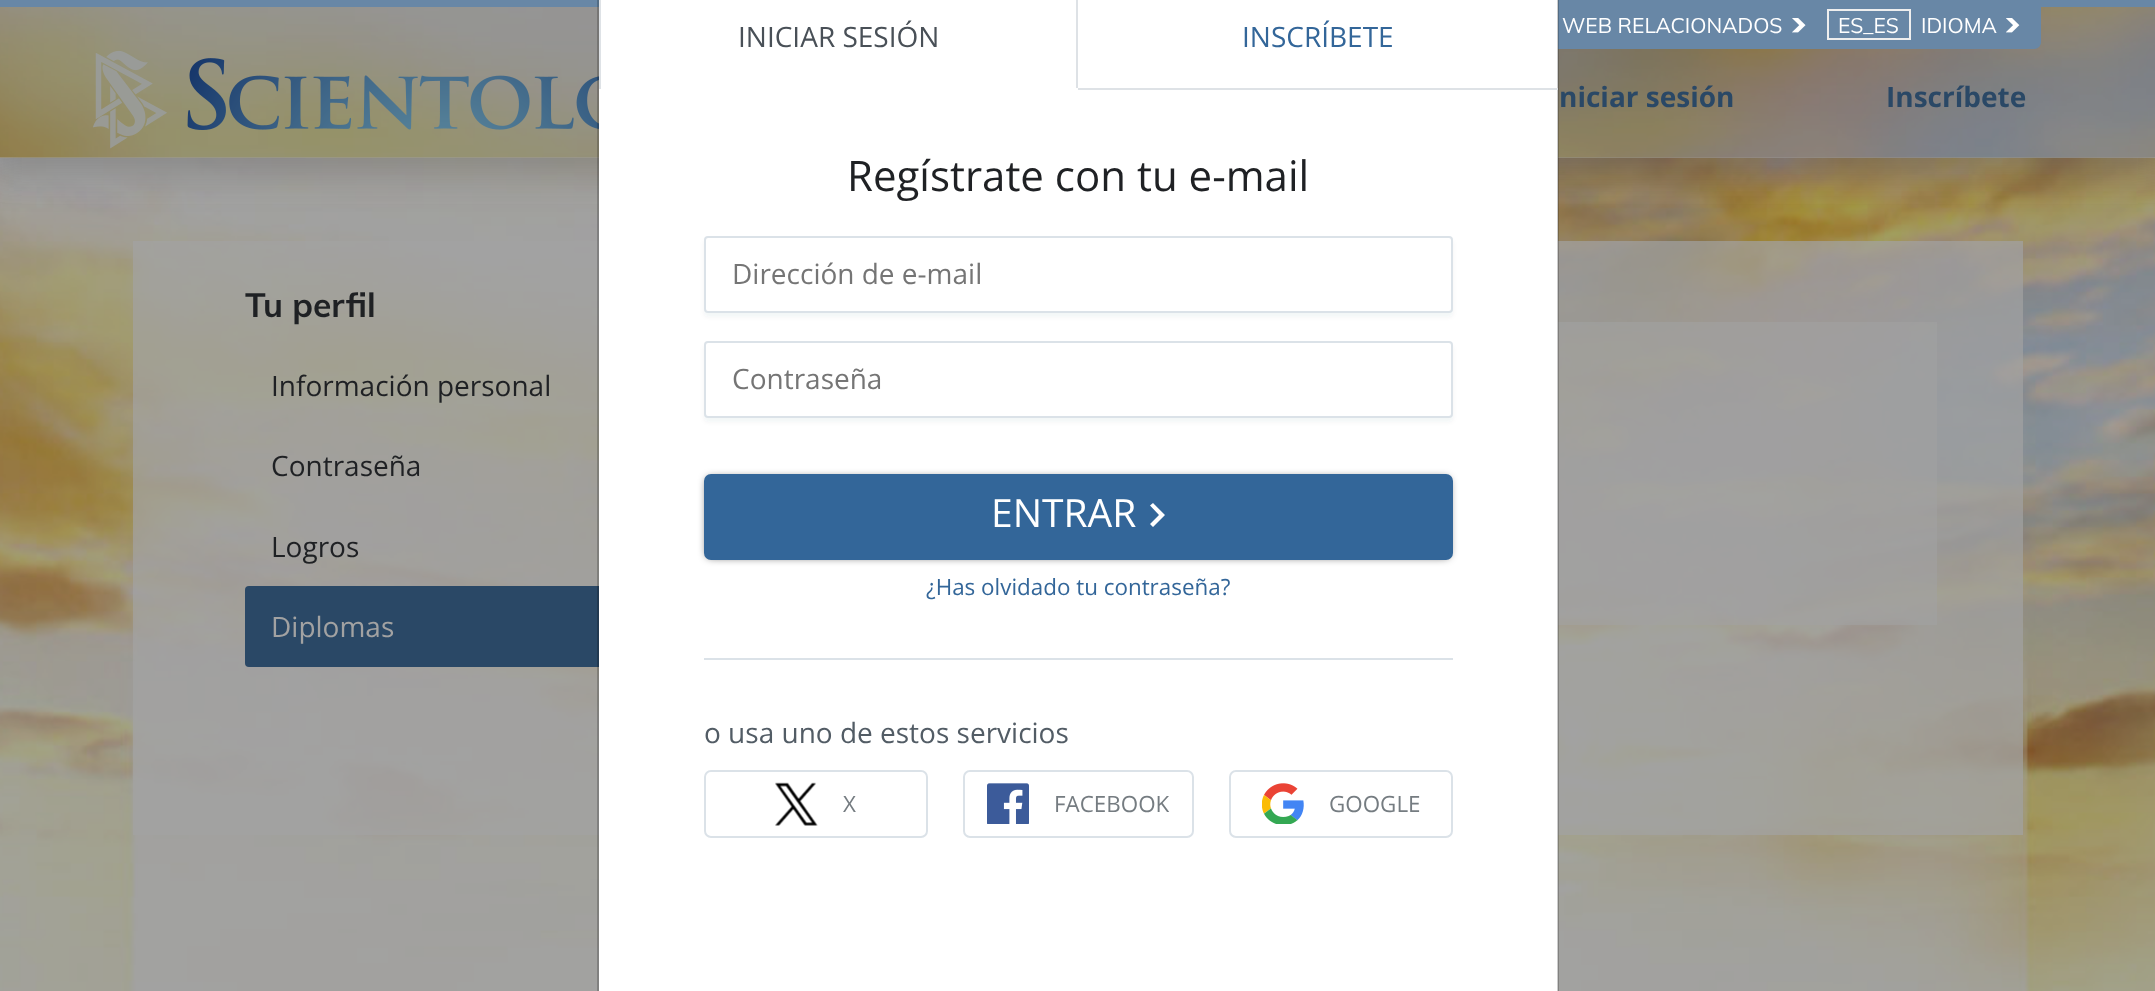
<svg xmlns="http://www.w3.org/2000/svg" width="2155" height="991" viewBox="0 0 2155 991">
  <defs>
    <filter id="blur1" x="-50%" y="-200%" width="200%" height="500%"><feGaussianBlur stdDeviation="17.5"/></filter>
    <filter id="blur2" x="-50%" y="-200%" width="200%" height="500%"><feGaussianBlur stdDeviation="2"/></filter>
    <filter id="blur3" x="-50%" y="-200%" width="200%" height="500%"><feGaussianBlur stdDeviation="4.5"/></filter>
  </defs>
  <rect width="100%" height="100%" fill="#ffffff"/>
  <image x="0" y="157" width="2155" height="834" href="img9.png"/>
  <rect x="-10" y="-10" width="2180" height="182" fill="#6d6d6d" fill-opacity="0.48" filter="url(#blur1)"/>
  <rect x="0" y="0" width="2155" height="7" fill="#6887a6"/>
  <image x="0" y="7" width="2155" height="151" href="img6.png"/>
  <rect x="0" y="7" width="2155" height="151" fill="#2e2e2e" fill-opacity="0.1"/>
  <rect x="133" y="241" width="1890" height="594" fill="#a2a2a2" fill-opacity="0.7"/>
  <rect x="245" y="586" width="378" height="81" rx="4" fill="#2a4866"/>
  <rect x="599" y="0" width="959" height="991" fill="#ffffff"/>
  <rect x="1558" y="7" width="252" height="42" fill="#6887a6"/>
  <image x="187" y="58" width="412" height="72" href="img8.png"/>
  <rect x="1558" y="322" width="379" height="303" fill="#a2a2a2" fill-opacity="0.6"/>
  <rect x="598" y="-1" width="960" height="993" fill="none" stroke="#000000" stroke-opacity="0.2" stroke-width="2"/>
  <rect x="1078" y="88" width="480" height="2" fill="#dee2e6"/>
  <rect x="1076" y="0" width="2" height="89" fill="#dee2e6"/>
  <rect x="1076" y="88" width="2" height="1" fill="#ffffff"/>
  <rect x="599" y="0" width="2" height="89" fill="#dee2e6"/>
  <text x="738" y="47" font-family="Open Sans" font-size="28" fill="#495057">INICIAR SESIÓN</text>
  <text x="1242" y="47" font-family="Open Sans" font-size="28" fill="#336699">INSCRÍBETE</text>
  <text x="847" y="191" font-family="Open Sans" font-size="42" fill="#1f2124">Regístrate con tu e-mail</text>
  <rect x="704" y="240" width="749" height="77" rx="4" fill="#2e3c49" fill-opacity="0.05" filter="url(#blur2)"/>
  <rect x="705" y="237" width="747" height="75" rx="3" fill="#ffffff" stroke="#dbe2e8" stroke-width="2"/>
  <text x="732" y="284" font-family="Open Sans" font-size="28" fill="#757575">Dirección de e-mail</text>
  <rect x="704" y="345" width="749" height="77" rx="4" fill="#2e3c49" fill-opacity="0.05" filter="url(#blur2)"/>
  <rect x="705" y="342" width="747" height="75" rx="3" fill="#ffffff" stroke="#dbe2e8" stroke-width="2"/>
  <text x="732" y="389" font-family="Open Sans" font-size="28" fill="#757575">Contraseña</text>
  <rect x="707" y="478" width="742" height="79" rx="4" fill="#000000" fill-opacity="0.75" filter="url(#blur3)"/>
  <rect x="706" y="476" width="745" height="82" rx="5" fill="#336699" stroke="#336699" stroke-width="4"/>
  <text x="991" y="527" font-family="Open Sans" font-size="39" fill="#ffffff">ENTRAR</text>
  <path d="M1150 524L1159 515L1150 505.5L1153 503L1165 515L1153 527Z" fill="#ffffff"/>
  <text x="926" y="595" font-family="Open Sans" font-size="22.4" fill="#336699">¿Has olvidado tu contraseña?</text>
  <rect x="704" y="658" width="749" height="2" fill="#dbe2e8"/>
  <text x="704" y="743" font-family="Open Sans" font-size="28" fill="#525c65">o usa uno de estos servicios</text>
  <rect x="705" y="771" width="222" height="66" rx="6" fill="none" stroke="#dbe2e8" stroke-width="2"/>
  <image x="775" y="782" width="43" height="44" href="img1.png"/>
  <text x="843" y="812" font-family="Open Sans" font-size="22.4" fill="#757c81">X</text>
  <rect x="964" y="771" width="229" height="66" rx="6" fill="none" stroke="#dbe2e8" stroke-width="2"/>
  <image x="987" y="783" width="42" height="41" href="img2.png"/>
  <text x="1054" y="812" font-family="Open Sans" font-size="22.4" fill="#757c81">FACEBOOK</text>
  <rect x="1230" y="771" width="222" height="66" rx="6" fill="none" stroke="#dbe2e8" stroke-width="2"/>
  <image x="1262" y="783" width="42" height="41" href="img3.png"/>
  <text x="1329" y="812" font-family="Open Sans" font-size="22.4" fill="#757c81">GOOGLE</text>
  <text x="1562" y="33" font-family="Muli" font-size="21" fill="#ffffff">WEB RELACIONADOS</text>
  <image x="1792" y="18" width="14" height="15" href="img4.png"/>
  <path d="M1810 7H2041V42C2041 46 2038 49 2034 49H1810Z" fill="#6887a6"/>
  <rect x="1828" y="10" width="82" height="29" fill="none" stroke="#eeeeee" stroke-width="2"/>
  <text x="1838" y="33" font-family="Muli" font-size="21" fill="#ffffff">ES_ES</text>
  <text x="1921" y="33" font-family="Muli" font-size="21" fill="#ffffff">IDIOMA</text>
  <image x="2006" y="18" width="14" height="15" href="img5.png"/>
  <image x="93" y="50" width="74" height="99" href="img7.png"/>
  <text x="1559" y="107" font-family="Open Sans" font-size="28" font-weight="bold" fill="#2a4866">niciar sesión</text>
  <text x="1886" y="107" font-family="Open Sans" font-size="28" font-weight="bold" fill="#2a4866">Inscríbete</text>
  <text x="245" y="317" font-family="Muli" font-size="33.5" font-weight="bold" fill="#1f2124">Tu perfil</text>
  <text x="271" y="396" font-family="Open Sans" font-size="28" fill="#1f2124">Información personal</text>
  <text x="271" y="476" font-family="Open Sans" font-size="28" fill="#1f2124">Contraseña</text>
  <text x="271" y="557" font-family="Open Sans" font-size="28" fill="#1f2124">Logros</text>
  <text x="271" y="637" font-family="Open Sans" font-size="28" fill="#a2a2a2">Diplomas</text>
</svg>
